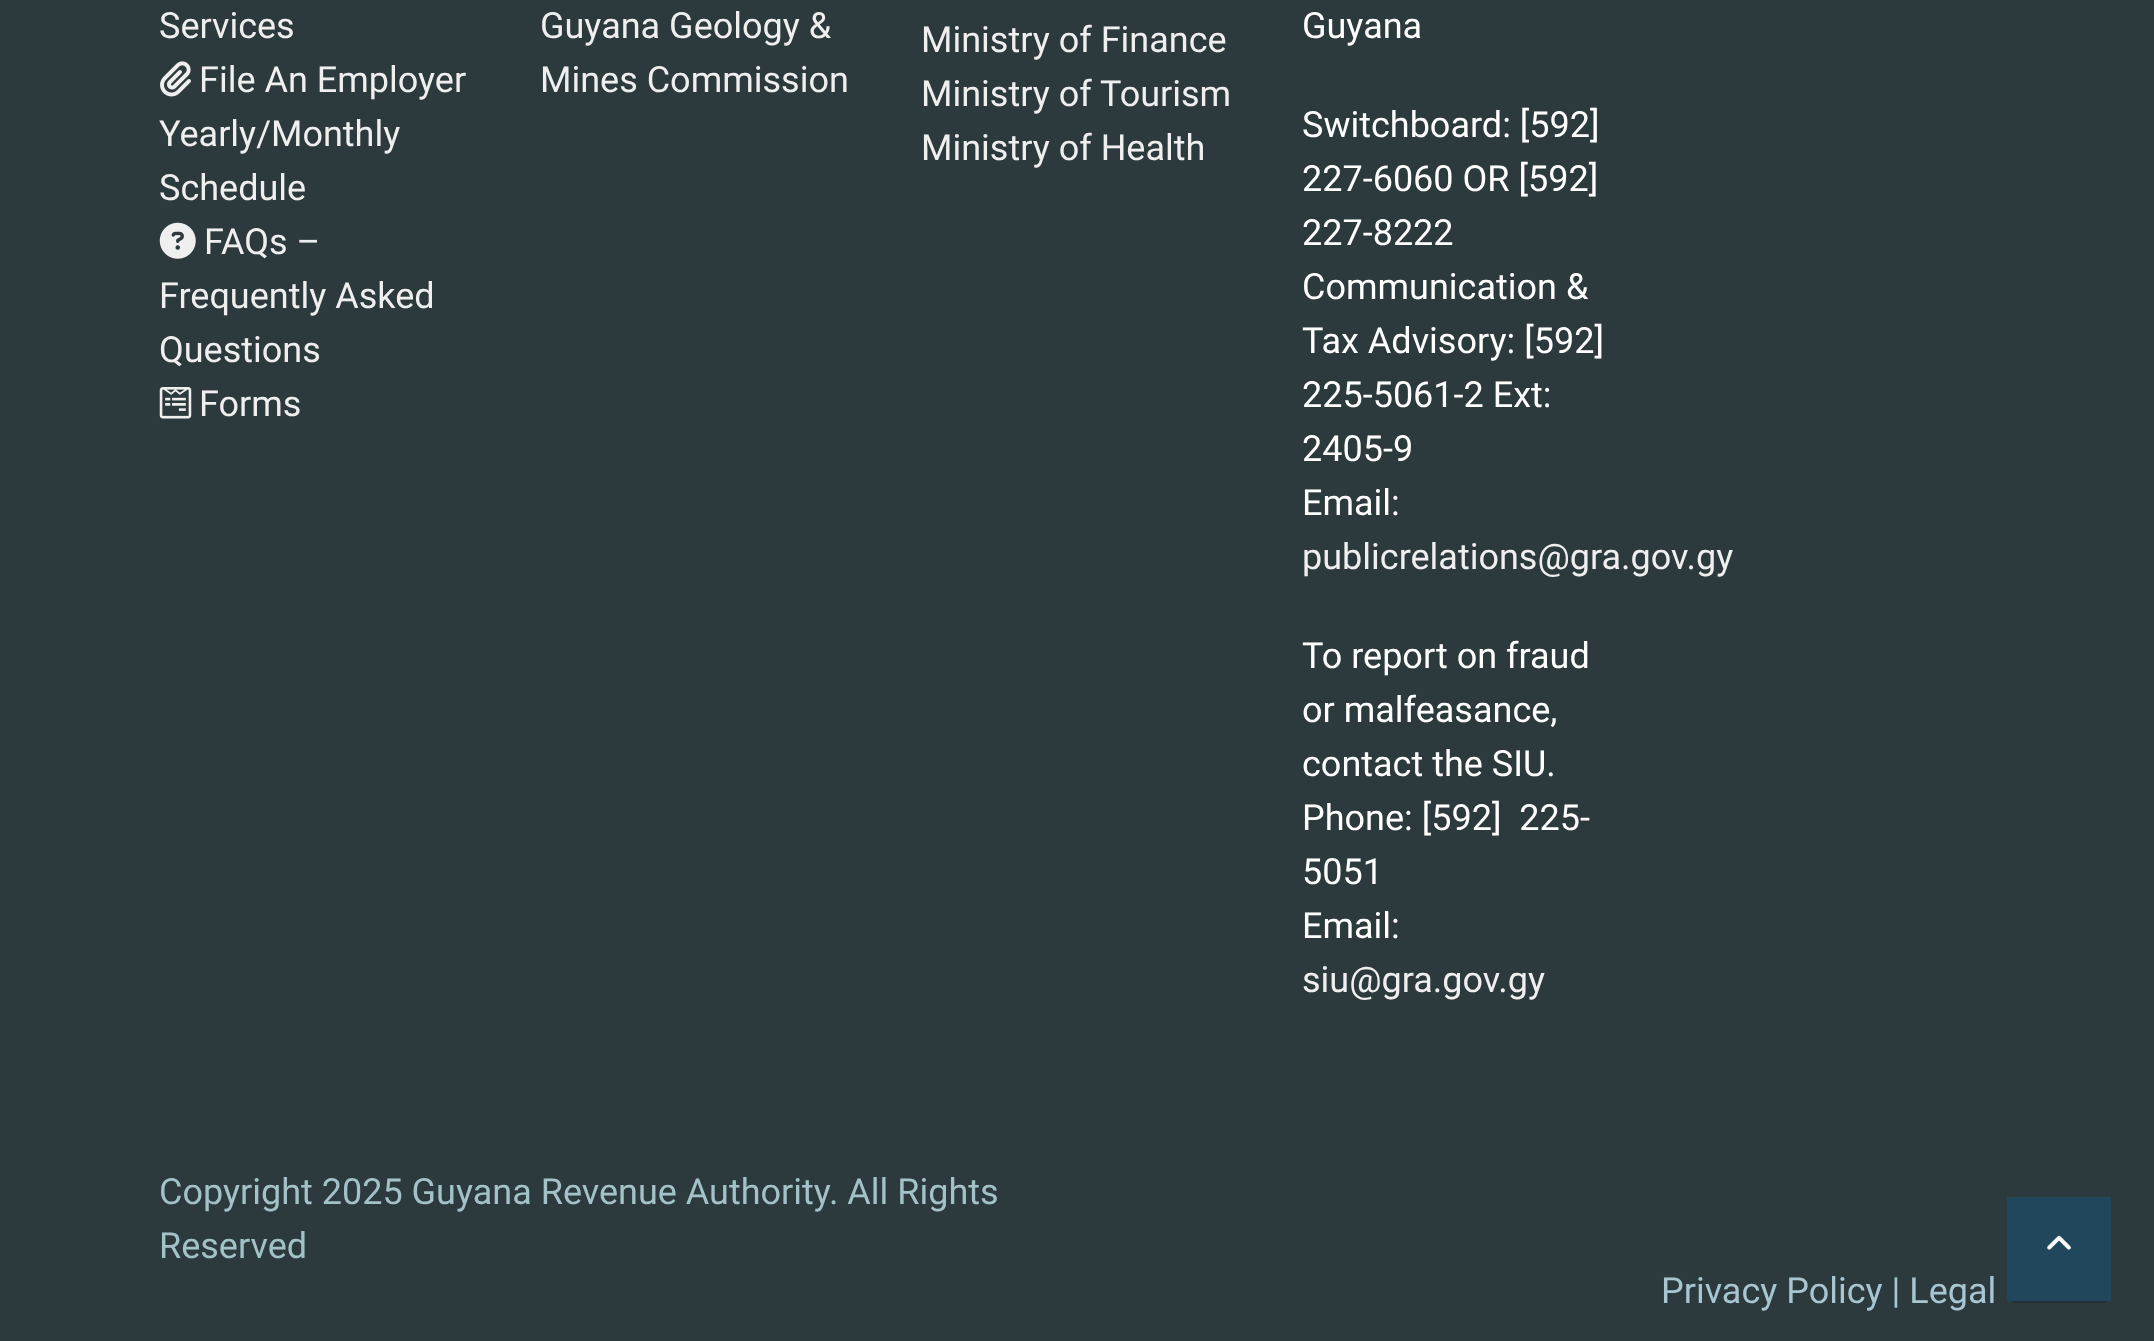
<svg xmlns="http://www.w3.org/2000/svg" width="2154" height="1341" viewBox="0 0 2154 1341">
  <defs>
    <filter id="blur1" x="-50%" y="-200%" width="200%" height="500%"><feGaussianBlur stdDeviation="1"/></filter>
  </defs>
  <rect width="100%" height="100%" fill="#2c393d"/>
  <text x="159" y="38" font-family="Roboto" font-size="36" fill="#efefef">Services</text>
  <image x="160" y="61" width="31" height="36" href="img1.png"/>
  <text x="199" y="92" font-family="Roboto" font-size="36" fill="#efefef">File An Employer</text>
  <text x="159" y="146" font-family="Roboto" font-size="36" fill="#efefef">Yearly/Monthly</text>
  <text x="159" y="200" font-family="Roboto" font-size="36" fill="#efefef">Schedule</text>
  <image x="159" y="222" width="37" height="37" href="img2.png"/>
  <text x="204" y="254" font-family="Roboto" font-size="36" fill="#efefef">FAQs –</text>
  <text x="159" y="308" font-family="Roboto" font-size="36" fill="#efefef">Frequently Asked</text>
  <text x="159" y="362" font-family="Roboto" font-size="36" fill="#efefef">Questions</text>
  <image x="159" y="387" width="33" height="32" href="img3.png"/>
  <text x="199" y="416" font-family="Roboto" font-size="36" fill="#efefef">Forms</text>
  <text x="540" y="38" font-family="Roboto" font-size="36" fill="#efefef">Guyana Geology &amp;</text>
  <text x="540" y="92" font-family="Roboto" font-size="36" fill="#efefef">Mines Commission</text>
  <text x="921" y="52" font-family="Roboto" font-size="36" fill="#efefef">Ministry of Finance</text>
  <text x="921" y="106" font-family="Roboto" font-size="36" fill="#efefef">Ministry of Tourism</text>
  <text x="921" y="160" font-family="Roboto" font-size="36" fill="#efefef">Ministry of Health</text>
  <text x="1302" y="38" font-family="Roboto" font-size="36" fill="#ffffff">Guyana</text>
  <text x="1302" y="137" font-family="Roboto" font-size="36" fill="#ffffff">Switchboard: [592]</text>
  <text x="1302" y="191" font-family="Roboto" font-size="36" fill="#ffffff">227-6060 OR [592]</text>
  <text x="1302" y="245" font-family="Roboto" font-size="36" fill="#ffffff">227-8222</text>
  <text x="1302" y="299" font-family="Roboto" font-size="36" fill="#ffffff">Communication &amp;</text>
  <text x="1302" y="353" font-family="Roboto" font-size="36" fill="#ffffff">Tax Advisory: [592]</text>
  <text x="1302" y="407" font-family="Roboto" font-size="36" fill="#ffffff">225-5061-2 Ext:</text>
  <text x="1302" y="461" font-family="Roboto" font-size="36" fill="#ffffff">2405-9</text>
  <text x="1302" y="515" font-family="Roboto" font-size="36" fill="#ffffff">Email:</text>
  <text x="1302" y="569" font-family="Roboto" font-size="36" fill="#efefef">publicrelations@gra.gov.gy</text>
  <text x="1302" y="668" font-family="Roboto" font-size="36" fill="#ffffff">To report on fraud</text>
  <text x="1302" y="722" font-family="Roboto" font-size="36" fill="#ffffff">or malfeasance,</text>
  <text x="1302" y="776" font-family="Roboto" font-size="36" fill="#ffffff">contact the SIU.</text>
  <text x="1302" y="830" font-family="Roboto" font-size="36" fill="#ffffff" xml:space="preserve">Phone: [592]  225-</text>
  <text x="1302" y="884" font-family="Roboto" font-size="36" fill="#ffffff">5051</text>
  <text x="1302" y="938" font-family="Roboto" font-size="36" fill="#ffffff">Email:</text>
  <text x="1302" y="992" font-family="Roboto" font-size="36" fill="#efefef">siu@gra.gov.gy</text>
  <text x="159" y="1204" font-family="Roboto" font-size="36" fill="#a3c2c7">Copyright 2025 Guyana Revenue Authority. All Rights</text>
  <text x="159" y="1258" font-family="Roboto" font-size="36" fill="#a3c2c7">Reserved</text>
  <text x="1661" y="1303" font-family="Roboto" font-size="36" fill="#a7c6d1">Privacy Policy | Legal</text>
  <rect x="2012" y="1208" width="94" height="95" fill="#000000" fill-opacity="0.2" filter="url(#blur1)"/>
  <rect x="2007" y="1197" width="104" height="104" fill="#20475c"/>
  <image x="2047" y="1235" width="24" height="15" href="img4.png"/>
</svg>
